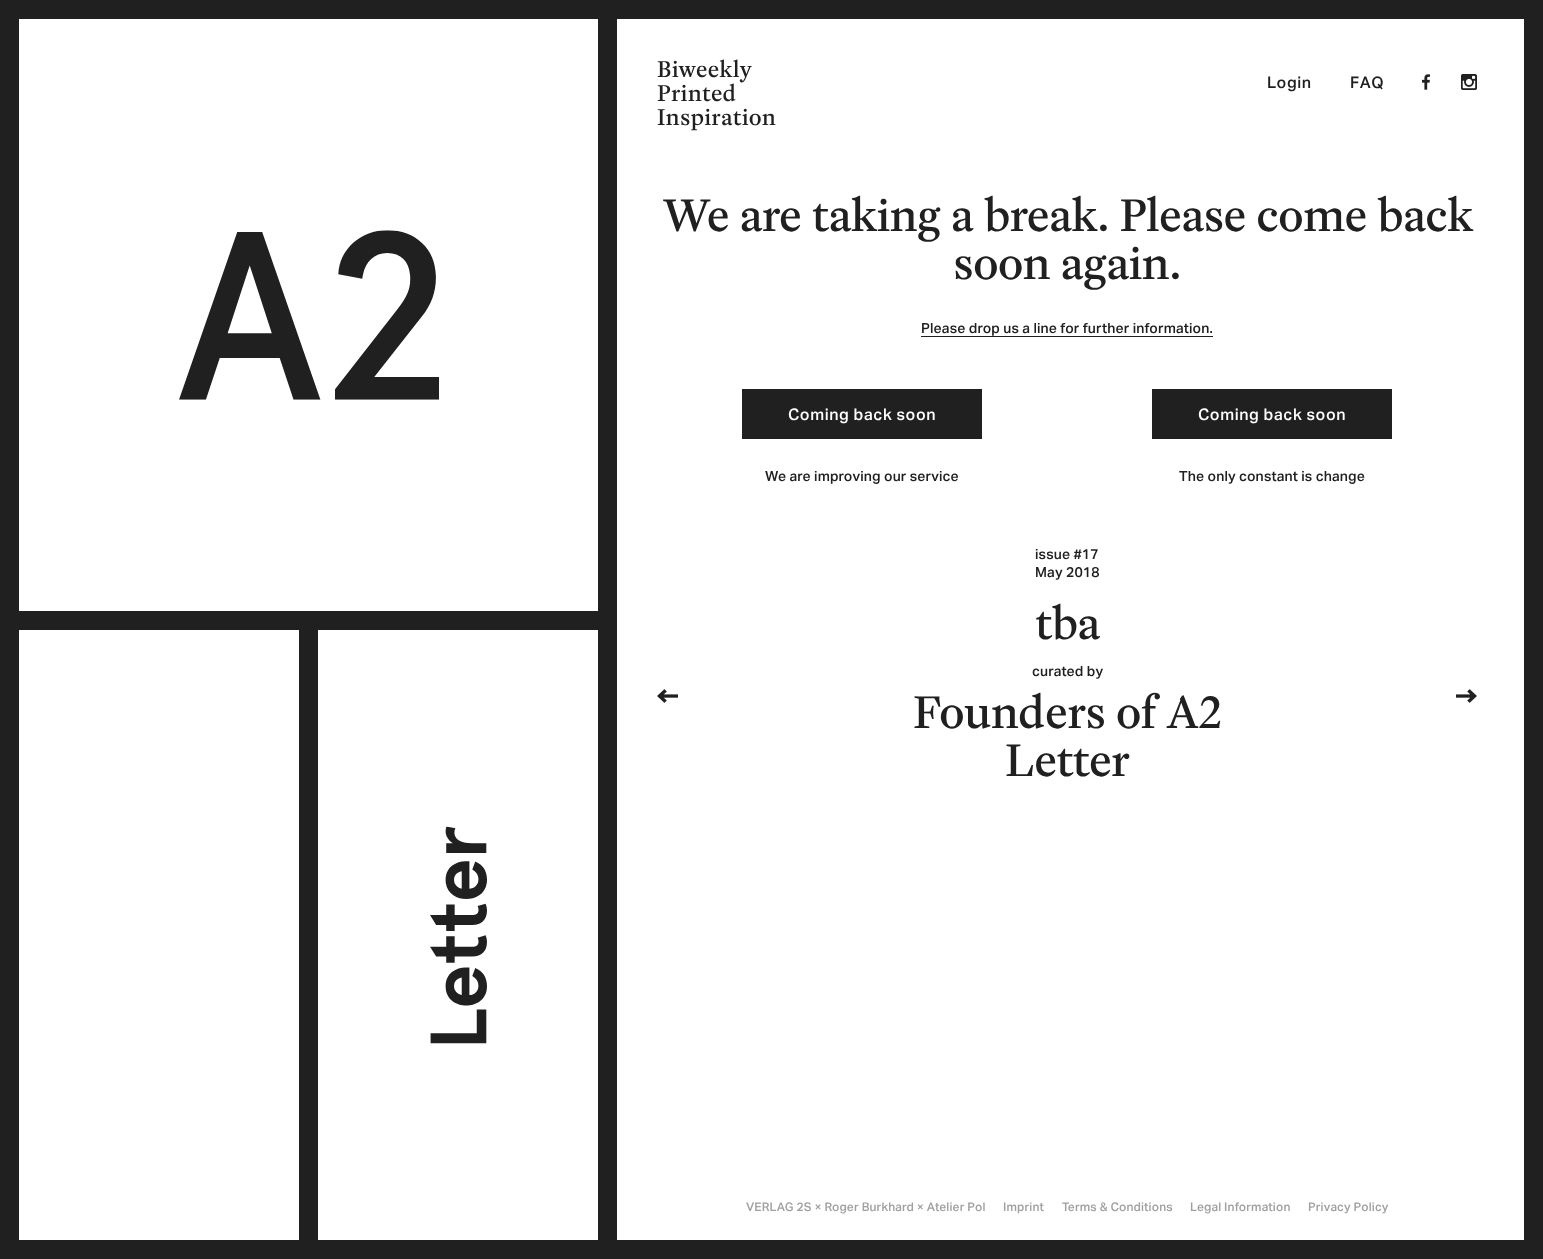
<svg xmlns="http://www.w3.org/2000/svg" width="1543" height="1259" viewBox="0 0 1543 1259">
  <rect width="100%" height="100%" fill="#ffffff"/>
  <rect x="0" y="0" width="19" height="1259" fill="#202020"/>
  <rect x="19" y="0" width="1505" height="19" fill="#202020"/>
  <rect x="1524" y="0" width="19" height="1240" fill="#202020"/>
  <rect x="598" y="19" width="19" height="1221" fill="#202020"/>
  <image x="179" y="230" width="260" height="170" href="img1.png"/>
  <rect x="19" y="611" width="579" height="19" fill="#202020"/>
  <rect x="299" y="630" width="19" height="610" fill="#202020"/>
  <image x="430" y="826" width="57" height="218" href="img2.png"/>
  <text x="657" y="77" font-family="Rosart" font-size="24" font-weight="500" letter-spacing="0.15" fill="#202020">Biweekly</text>
  <text x="657" y="101" font-family="Rosart" font-size="24" font-weight="500" letter-spacing="0.15" fill="#202020">Printed</text>
  <text x="657" y="125" font-family="Rosart" font-size="24" font-weight="500" letter-spacing="0.15" fill="#202020">Inspiration</text>
  <text x="1267" y="88" font-family="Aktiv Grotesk" font-size="16" font-weight="500" letter-spacing="0.6" fill="#202020">Login</text>
  <text x="1350" y="88" font-family="Aktiv Grotesk" font-size="16" font-weight="500" letter-spacing="0.6" fill="#202020">FAQ</text>
  <image x="1422" y="74" width="8" height="16" href="img3.png"/>
  <image x="1461" y="74" width="16" height="16" href="img4.png"/>
  <text x="662" y="231" font-family="Rosart" font-size="48" font-weight="500" letter-spacing="-0.95" fill="#202020">We are taking a break. Please come back</text>
  <text x="953" y="279" font-family="Rosart" font-size="48" font-weight="500" letter-spacing="-0.95" fill="#202020">soon again.</text>
  <text x="921" y="333" font-family="Aktiv Grotesk" font-size="14" font-weight="500" letter-spacing="0.15" fill="#202020">Please drop us a line for further information.</text>
  <rect x="921" y="336" width="292" height="1" fill="#202020"/>
  <rect x="742" y="389" width="240" height="50" fill="#202020"/>
  <text x="788" y="420" font-family="Aktiv Grotesk" font-size="16" font-weight="500" letter-spacing="0.6" fill="#ffffff">Coming back soon</text>
  <text x="765" y="481" font-family="Aktiv Grotesk" font-size="14" font-weight="500" letter-spacing="0.15" fill="#202020">We are improving our service</text>
  <rect x="1152" y="389" width="240" height="50" fill="#202020"/>
  <text x="1198" y="420" font-family="Aktiv Grotesk" font-size="16" font-weight="500" letter-spacing="0.6" fill="#ffffff">Coming back soon</text>
  <text x="1179" y="481" font-family="Aktiv Grotesk" font-size="14" font-weight="500" letter-spacing="0.15" fill="#202020">The only constant is change</text>
  <image x="657" y="689" width="21" height="14" href="img5.png"/>
  <text x="1035" y="559" font-family="Aktiv Grotesk" font-size="14" font-weight="500" letter-spacing="0.15" fill="#202020">issue #17</text>
  <text x="1035" y="577" font-family="Aktiv Grotesk" font-size="14" font-weight="500" letter-spacing="0.15" fill="#202020">May 2018</text>
  <text x="1035" y="639" font-family="Rosart" font-size="48" font-weight="500" letter-spacing="-0.95" fill="#202020">tba</text>
  <text x="1032" y="676" font-family="Aktiv Grotesk" font-size="14" font-weight="500" letter-spacing="0.15" fill="#202020">curated by</text>
  <text x="913" y="728" font-family="Rosart" font-size="48" font-weight="500" letter-spacing="-0.95" fill="#202020">Founders of A2</text>
  <text x="1005" y="776" font-family="Rosart" font-size="48" font-weight="500" letter-spacing="-0.95" fill="#202020">Letter</text>
  <image x="1456" y="689" width="21" height="14" href="img6.png"/>
  <text x="746" y="1211" font-family="Aktiv Grotesk" font-size="12" font-weight="500" letter-spacing="0.15" fill="#a0a0a0">VERLAG 2S × Roger Burkhard × Atelier Pol</text>
  <text x="1003" y="1211" font-family="Aktiv Grotesk" font-size="12" font-weight="500" letter-spacing="0.15" fill="#a0a0a0">Imprint</text>
  <text x="1062" y="1211" font-family="Aktiv Grotesk" font-size="12" font-weight="500" letter-spacing="0.15" fill="#a0a0a0">Terms &amp; Conditions</text>
  <text x="1190" y="1211" font-family="Aktiv Grotesk" font-size="12" font-weight="500" letter-spacing="0.15" fill="#a0a0a0">Legal Information</text>
  <text x="1308" y="1211" font-family="Aktiv Grotesk" font-size="12" font-weight="500" letter-spacing="0.15" fill="#a0a0a0">Privacy Policy</text>
  <rect x="19" y="1240" width="1524" height="19" fill="#202020"/>
</svg>
